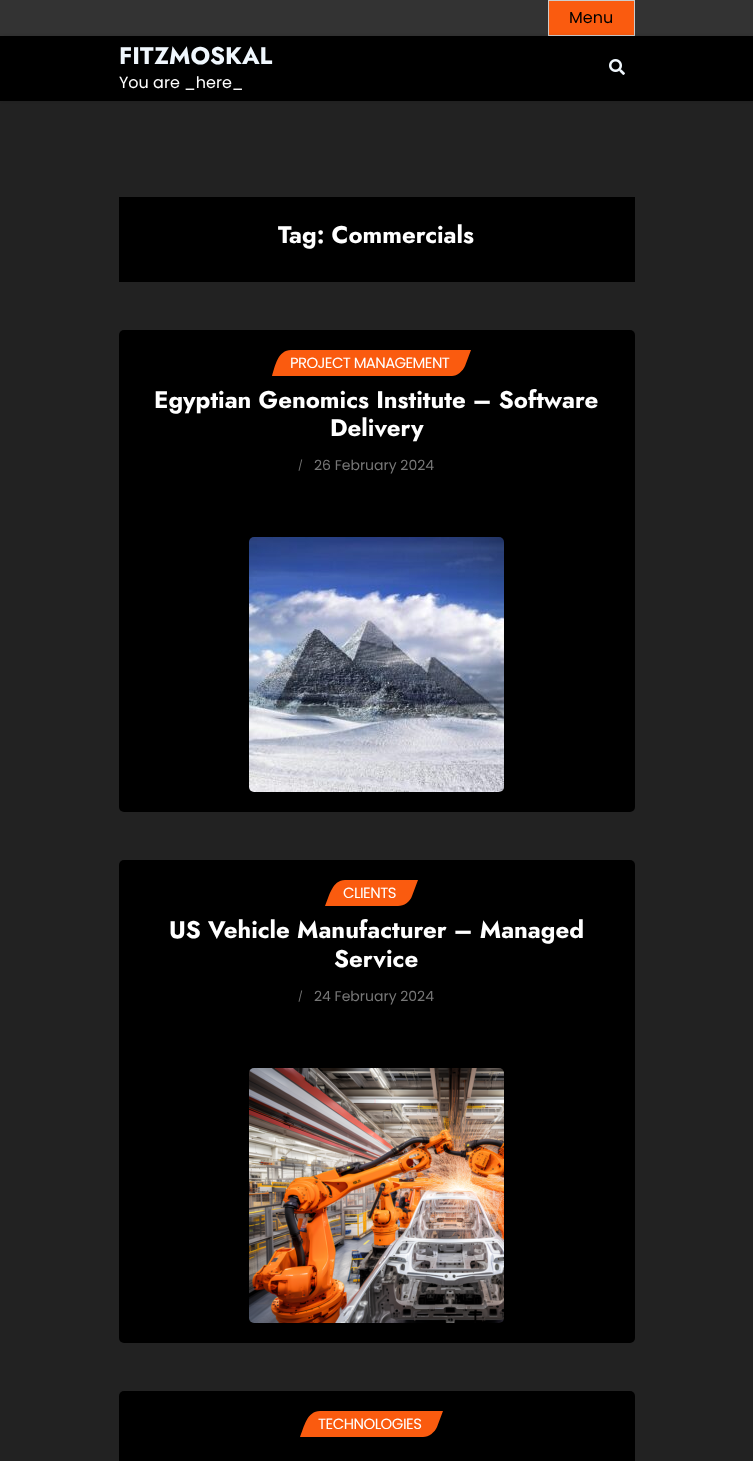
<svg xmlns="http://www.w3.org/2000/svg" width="753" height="1461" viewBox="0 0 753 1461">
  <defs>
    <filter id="blur1" x="-50%" y="-200%" width="200%" height="500%"><feGaussianBlur stdDeviation="2.5"/></filter>
  </defs>
  <rect width="100%" height="100%" fill="#222222"/>
  <rect x="0" y="0" width="753" height="36" fill="#333333"/>
  <rect x="548.5" y="0.5" width="86" height="35" fill="#fa5b0f" stroke="#cccccc"/>
  <text x="569" y="23" font-family="Poppins" font-size="16" fill="#000000">Menu</text>
  <rect x="0" y="36" width="753" height="65" fill="#000000" fill-opacity="0.12" filter="url(#blur1)"/>
  <rect x="0" y="36" width="753" height="65" fill="#000000"/>
  <text x="119" y="64" font-family="Jost" font-size="24" font-weight="bold" fill="#f0f7fd">FITZMOSKAL</text>
  <text x="119" y="88" font-family="Poppins" font-size="16" fill="#ffffff">You are _here_</text>
  <image x="609" y="59" width="16" height="16" href="img1.png"/>
  <rect x="119" y="197" width="516" height="85" fill="#000000"/>
  <text x="278" y="243" font-family="Jost" font-size="24" font-weight="bold" fill="#ffffff">Tag: Commercials</text>
  <rect x="119" y="330" width="516" height="482" rx="5" fill="#000000"/>
  <path d="M291 350H471L465 366C463 371 457 376 452 376H272C275 366 278 350 291 350Z" fill="#fa5b0f"/>
  <text x="290" y="368" font-family="Poppins" font-size="14.9" letter-spacing="-0.6" fill="#ffffff">PROJECT MANAGEMENT</text>
  <text x="154" y="408" font-family="Jost" font-size="24" font-weight="bold" fill="#ffffff">Egyptian Genomics Institute – Software</text>
  <text x="330" y="436" font-family="Jost" font-size="24" font-weight="bold" fill="#ffffff">Delivery</text>
  <text x="298" y="469" font-family="Poppins" font-size="10" fill="#777777">/</text>
  <text x="314" y="470" font-family="Poppins" font-size="14" fill="#777777">26 February 2024</text>
  <image x="249" y="537" width="255" height="255" href="img2.png"/>
  <rect x="119" y="860" width="516" height="483" rx="5" fill="#000000"/>
  <path d="M345 880H418L412 896C410 902 404 906 398 906H325C329 897 332 880 345 880Z" fill="#fa5b0f"/>
  <text x="343" y="898" font-family="Poppins" font-size="14.9" letter-spacing="-0.5" fill="#ffffff">CLIENTS</text>
  <text x="169" y="938" font-family="Jost" font-size="24" font-weight="bold" fill="#ffffff">US Vehicle Manufacturer – Managed</text>
  <text x="334" y="967" font-family="Jost" font-size="24" font-weight="bold" fill="#ffffff">Service</text>
  <text x="298" y="1000" font-family="Poppins" font-size="10" fill="#777777">/</text>
  <text x="314" y="1001" font-family="Poppins" font-size="14" fill="#777777">24 February 2024</text>
  <image x="249" y="1068" width="255" height="255" href="img3.png"/>
  <rect x="119" y="1391" width="516" height="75" rx="5" fill="#000000"/>
  <path d="M320 1411H443L437 1427C435 1432 429 1437 423 1437H300C304 1427 307 1411 320 1411Z" fill="#fa5b0f"/>
  <text x="318" y="1429" font-family="Poppins" font-size="14.9" letter-spacing="-0.5" fill="#ffffff">TECHNOLOGIES</text>
</svg>
